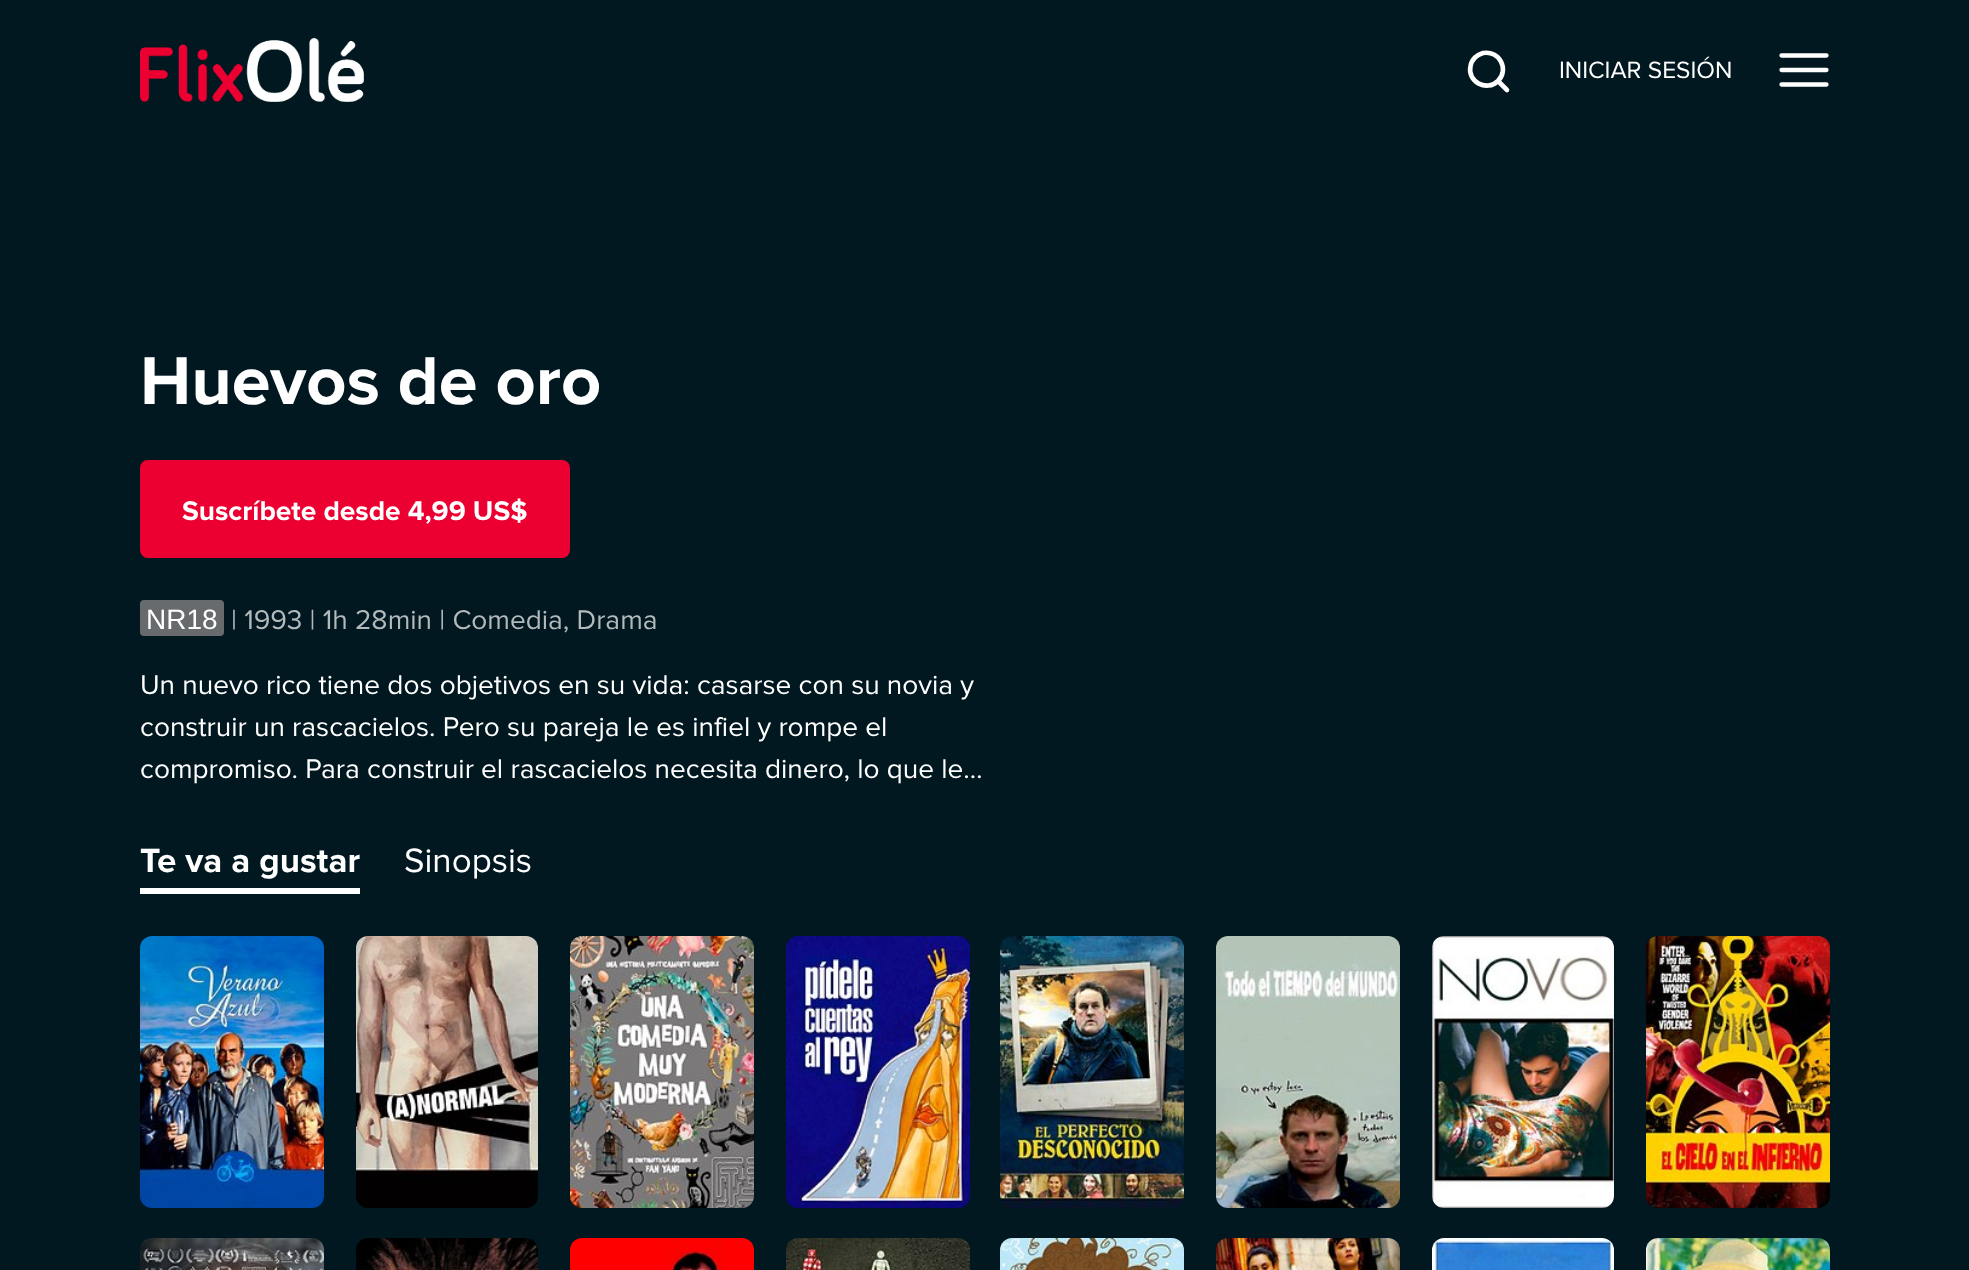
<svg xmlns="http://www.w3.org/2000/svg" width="1969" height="1270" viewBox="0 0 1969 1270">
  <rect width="100%" height="100%" fill="#021820"/>
  <image x="140" y="38" width="224" height="64" href="img1.png"/>
  <path d="M1507 90L1498 81M1498 81C1509.5 69.5 1499.5 50 1483 53C1480 54 1477 55.5 1475 57.5C1472.5 60 1471 63 1470.5 66C1467 82 1487 92 1498 81Z" fill="none" stroke="#ffffff" stroke-width="4.6" stroke-linecap="round" stroke-linejoin="round"/>
  <text x="1559" y="78" font-family="Proxima Nova" font-size="24.5" fill="#ffffff">INICIAR SESIÓN</text>
  <path d="M1781.5 55.5H1826.5M1781.5 70H1826.5M1781.5 84.5H1826.5" fill="none" stroke="#ffffff" stroke-width="4.3" stroke-linecap="round"/>
  <text x="140" y="404" font-family="Proxima Nova" font-size="70" font-weight="bold" fill="#ffffff">Huevos de oro</text>
  <rect x="140" y="460" width="430" height="98" rx="8" fill="#ec0032"/>
  <text x="182" y="520" font-family="Proxima Nova" font-size="28" font-weight="bold" fill="#ffffff">Suscríbete desde 4,99 US$</text>
  <rect x="140" y="600" width="84" height="36" rx="4" fill="#676b6d"/>
  <text x="146" y="629" font-family="Liberation Sans" font-size="28" fill="#ffffff">NR18</text>
  <text x="231" y="629" font-family="Proxima Nova" font-size="28" fill="#b3babc">| 1993 | 1h 28min | Comedia, Drama</text>
  <text x="140" y="694" font-family="Proxima Nova" font-size="28" fill="#ffffff">Un nuevo rico tiene dos objetivos en su vida: casarse con su novia y</text>
  <text x="140" y="736" font-family="Proxima Nova" font-size="28" fill="#ffffff">construir un rascacielos. Pero su pareja le es infiel y rompe el</text>
  <text x="140" y="778" font-family="Proxima Nova" font-size="28" fill="#ffffff">compromiso. Para construir el rascacielos necesita dinero, lo que le…</text>
  <rect x="140" y="888" width="220" height="6" fill="#ffffff"/>
  <text x="140" y="872" font-family="Proxima Nova" font-size="35" font-weight="bold" fill="#ffffff">Te va a gustar</text>
  <text x="404" y="872" font-family="Proxima Nova" font-size="35" fill="#ffffff">Sinopsis</text>
  <image x="140" y="936" width="184" height="272" href="img2.png"/>
  <image x="356" y="936" width="182" height="272" href="img3.png"/>
  <image x="570" y="936" width="184" height="272" href="img4.png"/>
  <image x="786" y="936" width="184" height="272" href="img5.png"/>
  <image x="1000" y="936" width="184" height="272" href="img6.png"/>
  <image x="1216" y="936" width="184" height="272" href="img7.png"/>
  <image x="1432" y="936" width="182" height="272" href="img8.png"/>
  <image x="1646" y="936" width="184" height="272" href="img9.png"/>
  <image x="140" y="1238" width="184" height="32" href="img10.png"/>
  <image x="356" y="1238" width="182" height="32" href="img11.png"/>
  <image x="570" y="1238" width="184" height="32" href="img12.png"/>
  <image x="786" y="1238" width="184" height="32" href="img13.png"/>
  <image x="1000" y="1238" width="184" height="32" href="img14.png"/>
  <image x="1216" y="1238" width="184" height="32" href="img15.png"/>
  <image x="1432" y="1238" width="182" height="32" href="img16.png"/>
  <image x="1646" y="1238" width="184" height="32" href="img17.png"/>
</svg>
